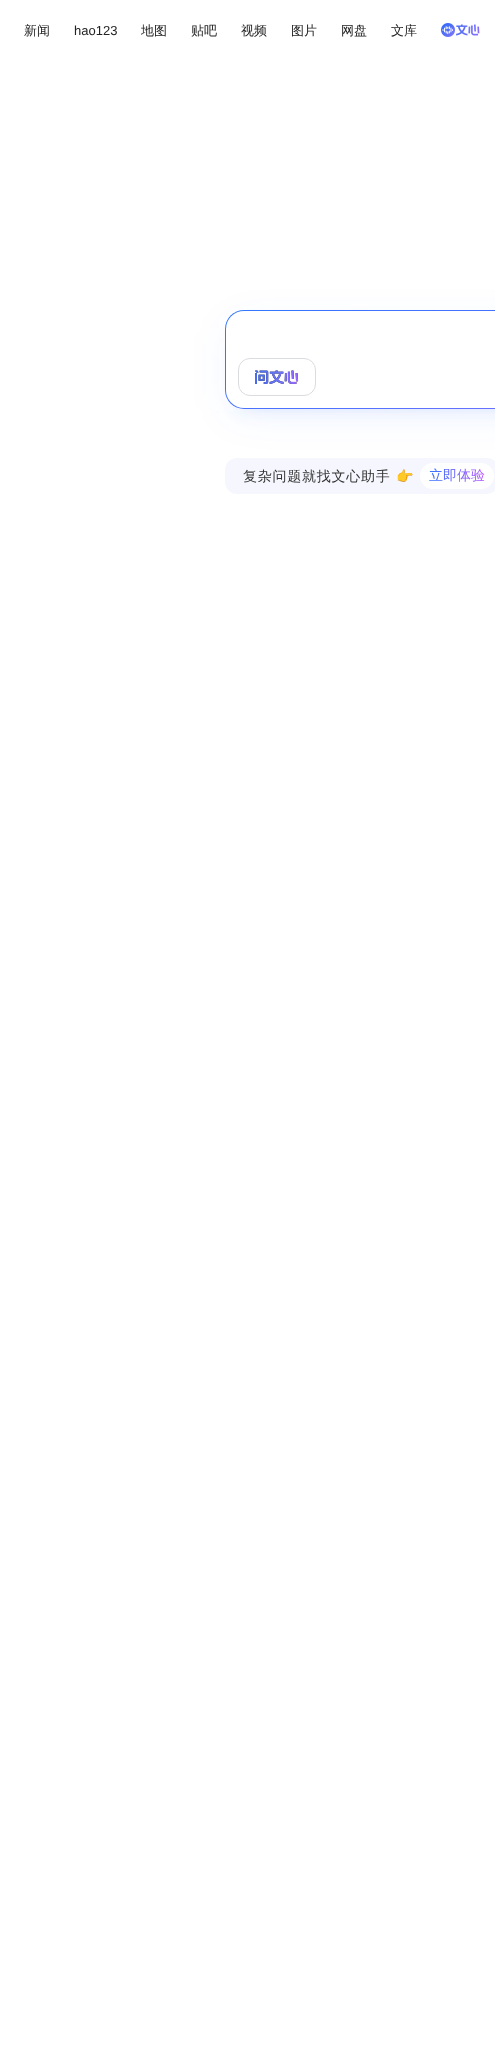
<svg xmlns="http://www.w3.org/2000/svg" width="495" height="2064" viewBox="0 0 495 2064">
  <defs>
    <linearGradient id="g1" gradientUnits="userSpaceOnUse" x1="429" y1="476" x2="485" y2="476"><stop offset="0" stop-color="#3377fe"/><stop offset="1" stop-color="#ba59ff"/></linearGradient>
    <filter id="blur1" x="-50%" y="-200%" width="200%" height="500%"><feGaussianBlur stdDeviation="20"/></filter>
    <linearGradient id="g2" gradientUnits="userSpaceOnUse" x1="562" y1="187" x2="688" y2="532"><stop offset="0" stop-color="#3377fe"/><stop offset="0.33" stop-color="#4c6fff"/><stop offset="0.67" stop-color="#8370ff"/><stop offset="1" stop-color="#ba59ff"/></linearGradient>
    <filter id="blur2" x="-50%" y="-200%" width="200%" height="500%"><feGaussianBlur stdDeviation="9"/></filter>
  </defs>
  <rect width="100%" height="100%" fill="#ffffff"/>
  <text x="24" y="35" font-family="WenQuanYi Zen Hei" font-size="13" font-weight="500" fill="#222222">新闻</text>
  <text x="74" y="35" font-family="Liberation Sans" font-size="13" fill="#222222">hao123</text>
  <text x="141" y="35" font-family="WenQuanYi Zen Hei" font-size="13" font-weight="500" fill="#222222">地图</text>
  <text x="191" y="35" font-family="WenQuanYi Zen Hei" font-size="13" font-weight="500" fill="#222222">贴吧</text>
  <text x="241" y="35" font-family="WenQuanYi Zen Hei" font-size="13" font-weight="500" fill="#222222">视频</text>
  <text x="291" y="35" font-family="WenQuanYi Zen Hei" font-size="13" font-weight="500" fill="#222222">图片</text>
  <text x="341" y="35" font-family="WenQuanYi Zen Hei" font-size="13" font-weight="500" fill="#222222">网盘</text>
  <text x="391" y="35" font-family="WenQuanYi Zen Hei" font-size="13" font-weight="500" fill="#222222">文库</text>
  <image x="441" y="23" width="39" height="14" href="img1.png"/>
  <rect x="225" y="458" width="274" height="36" rx="12" fill="#f6f7fe"/>
  <rect x="420" y="463" width="74" height="26" rx="13" fill="#ffffff"/>
  <rect x="233" y="328" width="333" height="83" rx="11" fill="#4d80ff" fill-opacity="0.1" filter="url(#blur1)"/>
  <rect x="225" y="310" width="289" height="99" rx="19" fill="url(#g2)"/>
  <rect x="240" y="338" width="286" height="69" rx="4" fill="#4d80ff" fill-opacity="0.2" filter="url(#blur2)"/>
  <rect x="226" y="311" width="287" height="97" rx="18" fill="#ffffff"/>
  <rect x="238.5" y="358.5" width="77" height="37" rx="11.5" fill="none" stroke="#dbdce0"/>
  <image x="255" y="370" width="44" height="14" href="img2.png"/>
  <text x="243" y="481" font-family="WenQuanYi Zen Hei" font-size="14" font-weight="500" letter-spacing="0.75" fill="#333333">复杂问题就找文心助手</text>
  <text x="396" y="481" font-family="Noto Color Emoji" font-size="14" letter-spacing="0.75" fill="#333333">👉</text>
  <rect x="396" y="483" width="17" height="1" fill="#f6f7fe"/>
  <text x="429" y="480" font-family="WenQuanYi Zen Hei" font-size="14" font-weight="500" fill="url(#g1)">立即体验</text>
</svg>
